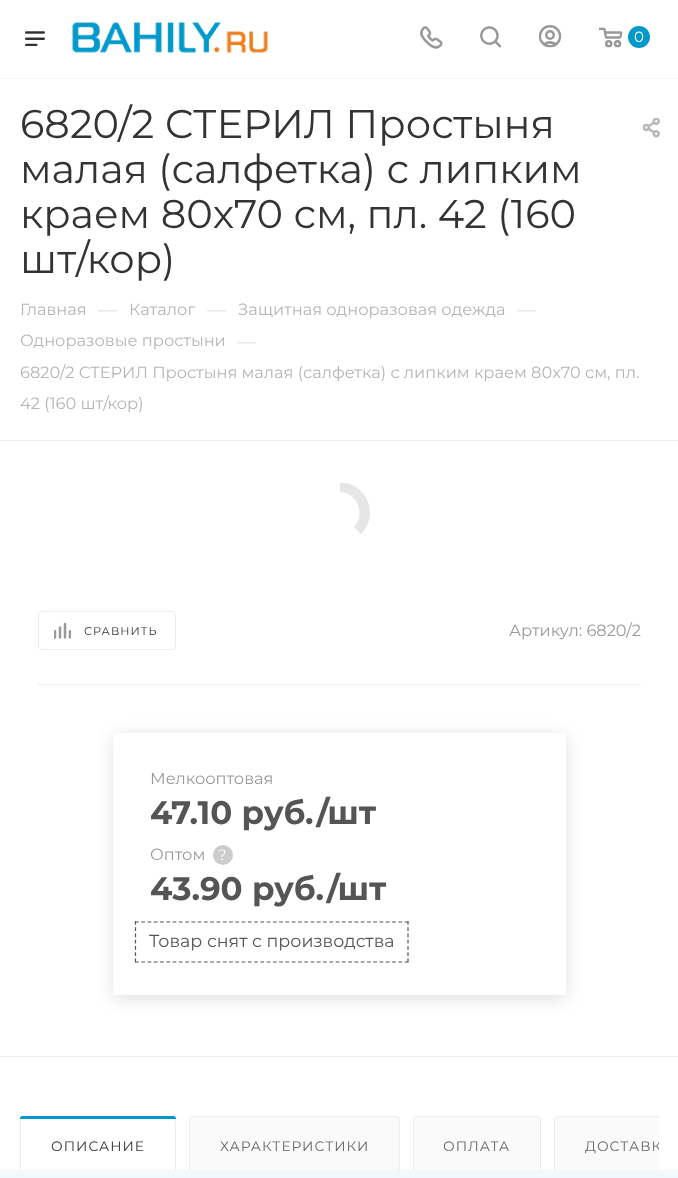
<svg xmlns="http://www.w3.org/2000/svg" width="678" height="1178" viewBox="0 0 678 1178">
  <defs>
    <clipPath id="clip1"><path d="M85 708H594V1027H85ZM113 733H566V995H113Z" clip-rule="evenodd"/></clipPath>
    <filter id="blur1" x="-50%" y="-200%" width="200%" height="500%"><feGaussianBlur stdDeviation="9"/></filter>
    <clipPath id="clip2"><rect x="20" y="1116" width="639" height="59"/></clipPath>
  </defs>
  <rect width="100%" height="100%" fill="#ffffff"/>
  <rect x="0" y="78" width="678" height="1" fill="#f8f8f8"/>
  <image x="25" y="31" width="20" height="15" href="img1.png"/>
  <image x="72" y="22" width="196" height="31" href="img2.png"/>
  <image x="420" y="26" width="23" height="23" href="img3.png"/>
  <image x="480" y="26" width="21" height="22" href="img4.png"/>
  <image x="538" y="25" width="24" height="23" href="img5.png"/>
  <image x="599" y="27" width="24" height="21" href="img6.png"/>
  <circle cx="639" cy="37" r="11" fill="#0099cc"/>
  <text x="634" y="42" font-family="Montserrat" font-size="15" fill="#ffffff">0</text>
  <text x="20" y="138" font-family="Montserrat" font-size="40" fill="#333333">6820/2 СТЕРИЛ Простыня</text>
  <text x="20" y="183" font-family="Montserrat" font-size="40" fill="#333333">малая (салфетка) с липким</text>
  <text x="20" y="228" font-family="Montserrat" font-size="40" fill="#333333">краем 80x70 см, пл. 42 (160</text>
  <text x="20" y="273" font-family="Montserrat" font-size="40" fill="#333333">шт/кор)</text>
  <image x="643" y="118" width="17" height="20" href="img7.png"/>
  <text x="20" y="315" font-family="Montserrat" font-size="16.25" fill="#b6b5b5">Главная</text>
  <text x="98" y="316" font-family="Montserrat" font-size="19" fill="#dddddd">—</text>
  <text x="129" y="315" font-family="Montserrat" font-size="16.25" fill="#b6b5b5">Каталог</text>
  <text x="207" y="316" font-family="Montserrat" font-size="19" fill="#dddddd">—</text>
  <text x="238" y="315" font-family="Montserrat" font-size="16.25" fill="#b6b5b5">Защитная одноразовая одежда</text>
  <text x="517" y="316" font-family="Montserrat" font-size="19" fill="#dddddd">—</text>
  <text x="20" y="346" font-family="Montserrat" font-size="16.25" fill="#b6b5b5">Одноразовые простыни</text>
  <text x="237" y="348" font-family="Montserrat" font-size="19" fill="#dddddd">—</text>
  <text x="20" y="378" font-family="Montserrat" font-size="16.25" fill="#b6b5b5">6820/2 СТЕРИЛ Простыня малая (салфетка) с липким краем 80x70 см, пл.</text>
  <text x="20" y="409" font-family="Montserrat" font-size="16.25" fill="#b6b5b5">42 (160 шт/кор)</text>
  <rect x="0" y="440" width="678" height="1" fill="#ececec"/>
  <rect x="0" y="1056" width="678" height="1" fill="#ececec"/>
  <path d="M370 513C370 520 367 528 361 534L354 527C366 514 357 492 340 492V483H347C361 487 370 499 370 513Z" fill="#e6e6e6"/>
  <rect x="38" y="684" width="603" height="1" fill="#ececec"/>
  <rect x="38.5" y="611.5" width="137" height="38" rx="3.5" fill="none" stroke="#ececec"/>
  <image x="54" y="623" width="17" height="16" href="img8.png"/>
  <text x="84" y="635" font-family="Montserrat" font-size="11.25" letter-spacing="1" fill="#333333">СРАВНИТЬ</text>
  <text x="509" y="636" font-family="Montserrat" font-size="16.25" fill="#999999">Артикул: 6820/2</text>
  <g clip-path="url(#clip1)">
    <rect x="113" y="736" width="453" height="263" fill="#000000" fill-opacity="0.12" filter="url(#blur1)"/>
  </g>
  <text x="150" y="784" font-family="Montserrat" font-size="16.25" fill="#999999">Мелкооптовая</text>
  <text x="150" y="824" font-family="Montserrat" font-size="32.5" font-weight="bold" fill="#555555">47.10 руб./шт</text>
  <text x="150" y="860" font-family="Montserrat" font-size="16.25" fill="#999999">Оптом</text>
  <circle cx="223" cy="855" r="10" fill="#cccccc"/>
  <text x="218" y="860" font-family="Montserrat" font-size="15" fill="#ffffff">?</text>
  <text x="150" y="900" font-family="Montserrat" font-size="32.5" font-weight="bold" fill="#555555">43.90 руб./шт</text>
  <path d="M135 922H409" fill="none" stroke="#555555" stroke-width="1.2" stroke-dasharray="3.75 2.52"/>
  <path d="M408 921V962.5" fill="none" stroke="#555555" stroke-width="1.2" stroke-dasharray="3.75 2.5"/>
  <path d="M135 962H409" fill="none" stroke="#555555" stroke-width="1.2" stroke-dasharray="3.75 2.52"/>
  <path d="M135.5 921V962.5" fill="none" stroke="#555555" stroke-width="1.2" stroke-dasharray="3.75 2.5"/>
  <text x="149" y="947" font-family="Montserrat" font-size="17.5" fill="#555555">Товар снят с производства</text>
  <rect x="20.5" y="1116.5" width="155" height="58" rx="3.5" fill="#fafafa" stroke="#ececec"/>
  <rect x="21" y="1118" width="154" height="56" rx="4" fill="#ffffff"/>
  <path d="M22.5 1116H173.5C175 1116 176 1117 176 1118.5V1119H20V1118.5C20 1117 21 1116 22.5 1116Z" fill="#0099cc"/>
  <text x="51" y="1151" font-family="Montserrat" font-size="13.75" letter-spacing="1" fill="#333333">ОПИСАНИЕ</text>
  <rect x="189.5" y="1116.5" width="210" height="58" rx="3.5" fill="#fafafa" stroke="#ececec"/>
  <text x="220" y="1151" font-family="Montserrat" font-size="13.75" letter-spacing="1" fill="#666666">ХАРАКТЕРИСТИКИ</text>
  <rect x="413.5" y="1116.5" width="127" height="58" rx="3.5" fill="#fafafa" stroke="#ececec"/>
  <text x="443" y="1151" font-family="Montserrat" font-size="13.75" letter-spacing="1" fill="#666666">ОПЛАТА</text>
  <path d="M558 1116H659V1175H558C556 1175 554 1173 554 1171V1120C554 1118 556 1116 558 1116Z" fill="#fafafa"/>
  <g clip-path="url(#clip2)">
    <rect x="554.5" y="1116.5" width="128" height="58" rx="3.5" fill="none" stroke="#ececec"/>
    <text x="585" y="1151" font-family="Montserrat" font-size="13.75" letter-spacing="1" fill="#666666">ДОСТАВК</text>
  </g>
  <rect x="0" y="1170" width="678" height="8" fill="#f1f9fc"/>
</svg>
